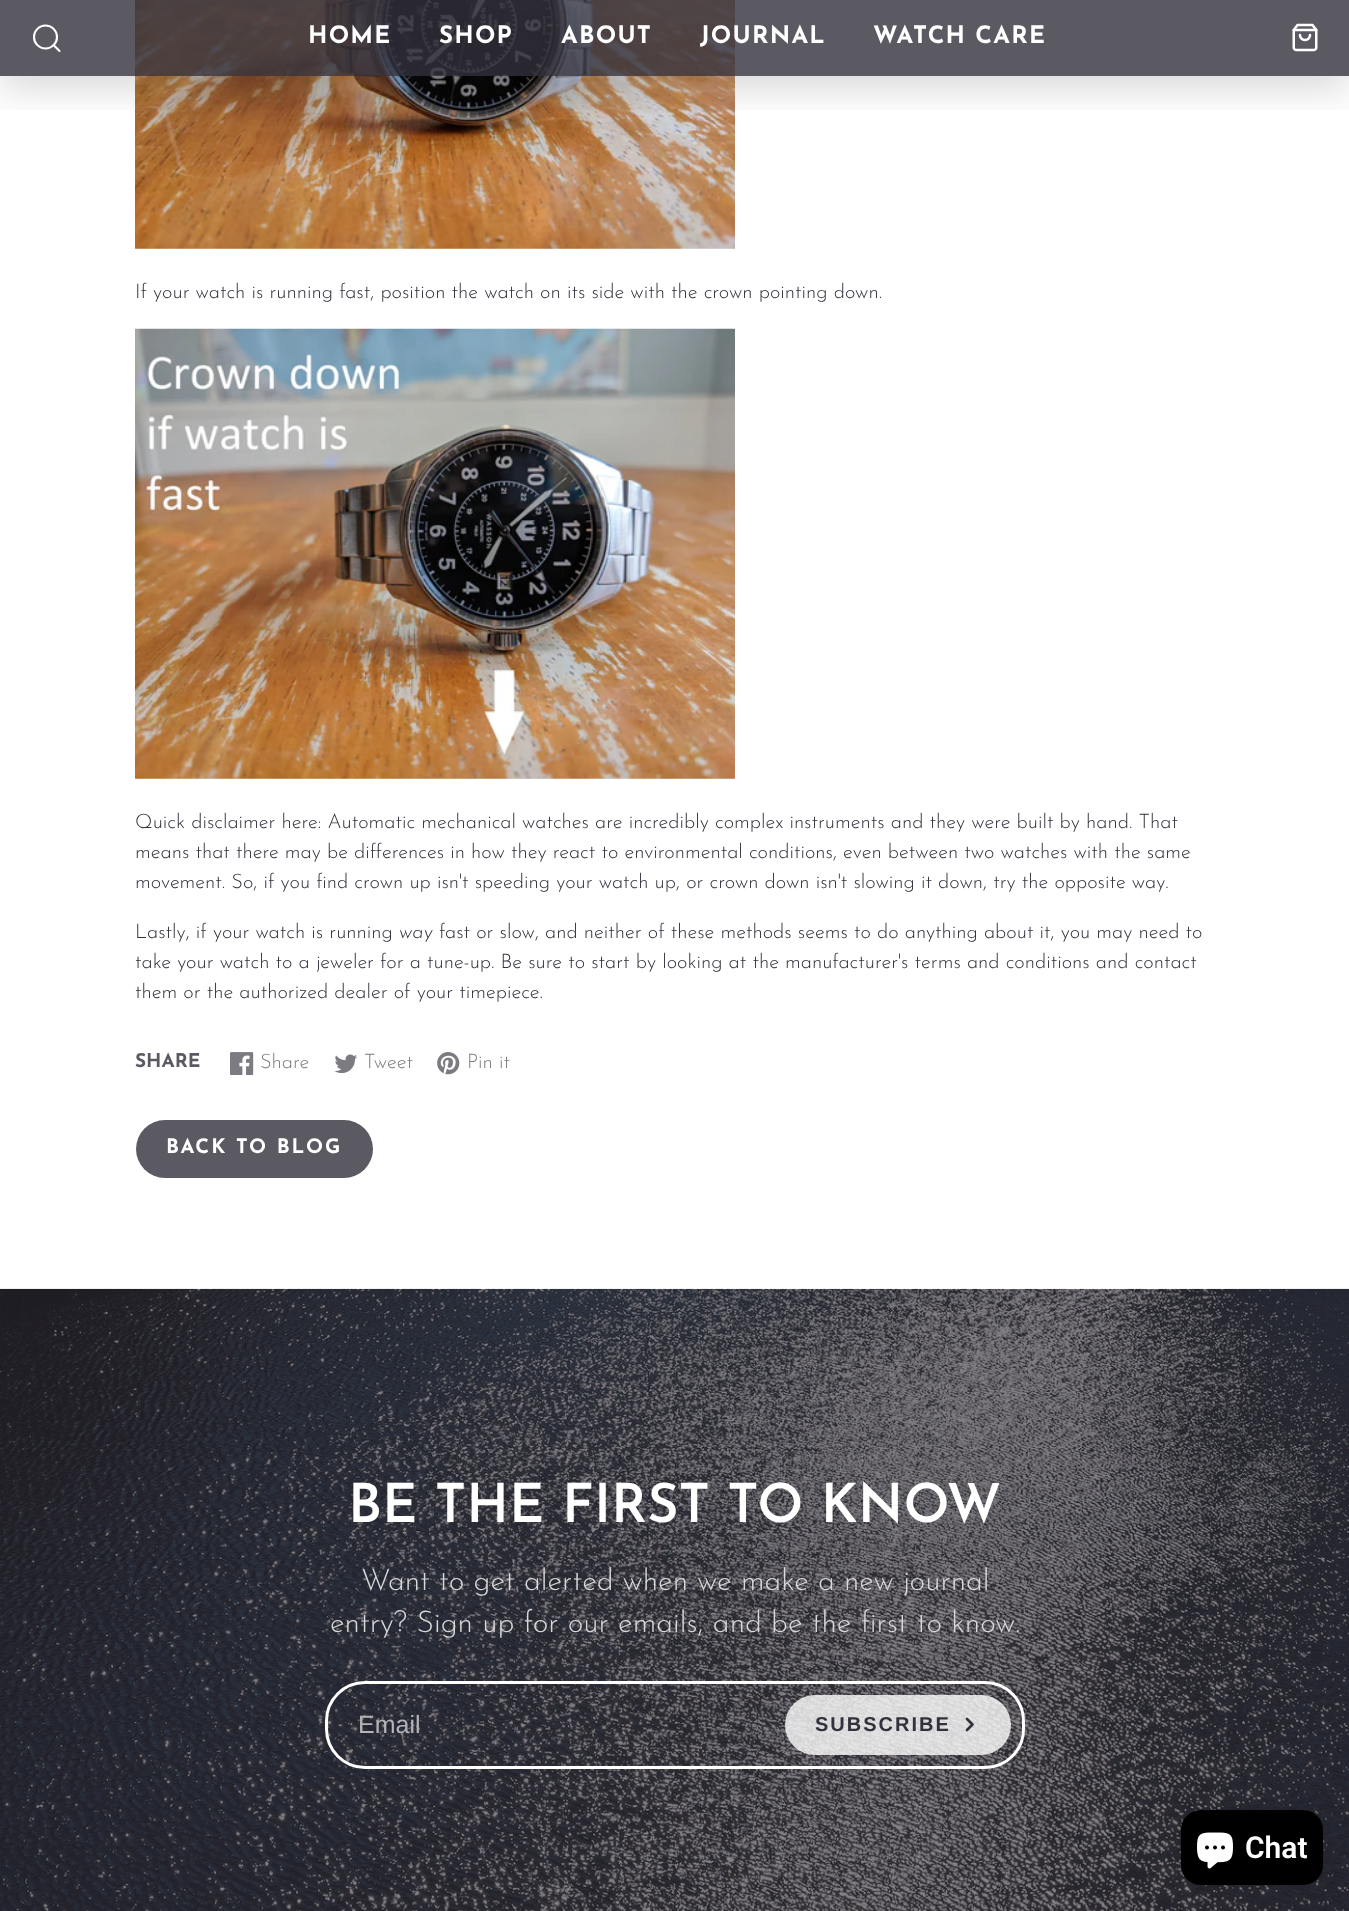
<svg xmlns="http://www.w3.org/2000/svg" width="1349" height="1911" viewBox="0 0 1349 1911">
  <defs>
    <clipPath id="clip1"><rect x="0" y="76" width="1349" height="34"/></clipPath>
    <filter id="blur1" x="-50%" y="-200%" width="200%" height="500%"><feGaussianBlur stdDeviation="19"/></filter>
    <filter id="blur2" x="-50%" y="-200%" width="200%" height="500%"><feGaussianBlur stdDeviation="3"/></filter>
  </defs>
  <rect width="100%" height="100%" fill="#ffffff"/>
  <image x="135" y="0" width="600" height="249" href="img2.png"/>
  <g clip-path="url(#clip1)">
    <rect x="0" y="13" width="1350" height="76" fill="#000000" fill-opacity="0.15" filter="url(#blur1)"/>
  </g>
  <rect x="0" y="0" width="1349" height="76" fill="#32313c" fill-opacity="0.8"/>
  <circle cx="45.5" cy="37" r="11.5" fill="none" stroke="#ffffff" stroke-width="2.1"/>
  <path d="M59.5 51L53.5 45" fill="none" stroke="#ffffff" stroke-width="2.1" stroke-linecap="round" stroke-linejoin="round"/>
  <text x="308" y="43" font-family="Josefin Sans" font-size="24" font-weight="bold" letter-spacing="1.25" fill="#ffffff">HOME</text>
  <text x="439" y="43" font-family="Josefin Sans" font-size="24" font-weight="bold" letter-spacing="1.25" fill="#ffffff">SHOP</text>
  <text x="561" y="43" font-family="Josefin Sans" font-size="24" font-weight="bold" letter-spacing="1.25" fill="#ffffff">ABOUT</text>
  <text x="700" y="43" font-family="Josefin Sans" font-size="24" font-weight="bold" letter-spacing="1.25" fill="#ffffff">JOURNAL</text>
  <text x="873" y="43" font-family="Josefin Sans" font-size="24" font-weight="bold" letter-spacing="1.25" fill="#ffffff">WATCH CARE</text>
  <image x="1292" y="23" width="26" height="29" href="img1.png"/>
  <text x="135" y="298" font-family="Josefin Sans" font-size="20" font-weight="300" fill="#32313c">If your watch is running fast, position the watch on its side with the crown pointing down.</text>
  <image x="135" y="328" width="600" height="451" href="img3.png"/>
  <text x="135" y="828" font-family="Josefin Sans" font-size="20" font-weight="300" fill="#32313c">Quick disclaimer here: Automatic mechanical watches are incredibly complex instruments and they were built by hand. That</text>
  <text x="135" y="858" font-family="Josefin Sans" font-size="20" font-weight="300" fill="#32313c">means that there may be differences in how they react to environmental conditions, even between two watches with the same</text>
  <text x="135" y="888" font-family="Josefin Sans" font-size="20" font-weight="300" fill="#32313c">movement. So, if you find crown up isn't speeding your watch up, or crown down isn't slowing it down, try the opposite way.</text>
  <text x="135" y="938" font-family="Josefin Sans" font-size="20" font-weight="300" fill="#32313c">Lastly, if your watch is running</text>
  <text x="399" y="938" font-family="Josefin Sans" font-size="20" font-weight="300" font-style="italic" fill="#32313c">way</text>
  <text x="439" y="938" font-family="Josefin Sans" font-size="20" font-weight="300" fill="#32313c">fast or slow, and neither of these methods seems to do anything about it, you may need to</text>
  <text x="135" y="968" font-family="Josefin Sans" font-size="20" font-weight="300" fill="#32313c">take your watch to a jeweler for a tune-up. Be sure to start by looking at the manufacturer's terms and conditions and contact</text>
  <text x="135" y="998" font-family="Josefin Sans" font-size="20" font-weight="300" fill="#32313c">them or the authorized dealer of your timepiece.</text>
  <text x="135" y="1067" font-family="Josefin Sans" font-size="19" font-weight="bold" fill="#5b5a63">SHARE</text>
  <image x="230" y="1052" width="24" height="23" href="img4.png"/>
  <text x="260" y="1068" font-family="Josefin Sans" font-size="20" font-weight="300" fill="#7c7b82">Share</text>
  <image x="334" y="1054" width="23" height="20" href="img5.png"/>
  <text x="364" y="1068" font-family="Josefin Sans" font-size="20" font-weight="300" fill="#7c7b82">Tweet</text>
  <image x="437" y="1052" width="23" height="23" href="img6.png"/>
  <text x="467" y="1068" font-family="Josefin Sans" font-size="20" font-weight="300" fill="#7c7b82">Pin it</text>
  <rect x="136" y="1120" width="237" height="58" rx="29" fill="#5b5a63"/>
  <text x="166" y="1153" font-family="Josefin Sans" font-size="20" font-weight="bold" letter-spacing="2" fill="#ffffff">BACK TO BLOG</text>
  <image x="0" y="1288" width="1349" height="623" href="img7.png"/>
  <text x="348" y="1522" font-family="Josefin Sans" font-size="54" font-weight="600" fill="#ffffff">BE THE FIRST TO KNOW</text>
  <text x="361" y="1590" font-family="Josefin Sans" font-size="30" font-weight="300" fill="#d9d9db">Want to get alerted when we make a new journal</text>
  <text x="330" y="1632" font-family="Josefin Sans" font-size="30" font-weight="300" fill="#d9d9db">entry? Sign up for our emails, and be the first to know.</text>
  <rect x="326.5" y="1682.5" width="697" height="85" rx="38.5" fill="none" stroke="#ffffff" stroke-width="3"/>
  <text x="358" y="1733" font-family="Liberation Sans" font-size="25" fill="#b4b4b8">Email</text>
  <rect x="785" y="1695" width="226" height="60" rx="30" fill="#ffffff" fill-opacity="0.8"/>
  <text x="815" y="1731" font-family="Liberation Sans" font-size="20" font-weight="bold" letter-spacing="2" fill="#32313c">SUBSCRIBE</text>
  <path d="M967 1730L972.5 1724.5L967 1719" fill="none" stroke="#32313c" stroke-width="2.7" stroke-linecap="round" stroke-linejoin="round"/>
  <rect x="1181" y="1810" width="142" height="75" rx="20" fill="#000000" fill-opacity="0.15" filter="url(#blur2)"/>
  <rect x="1181" y="1810" width="142" height="75" rx="20" fill="#000000"/>
  <image x="1197" y="1832" width="36" height="37" href="img8.png"/>
  <text x="1245" y="1858" font-family="Roboto" font-size="30" font-weight="600" fill="#ffffff">Chat</text>
</svg>
